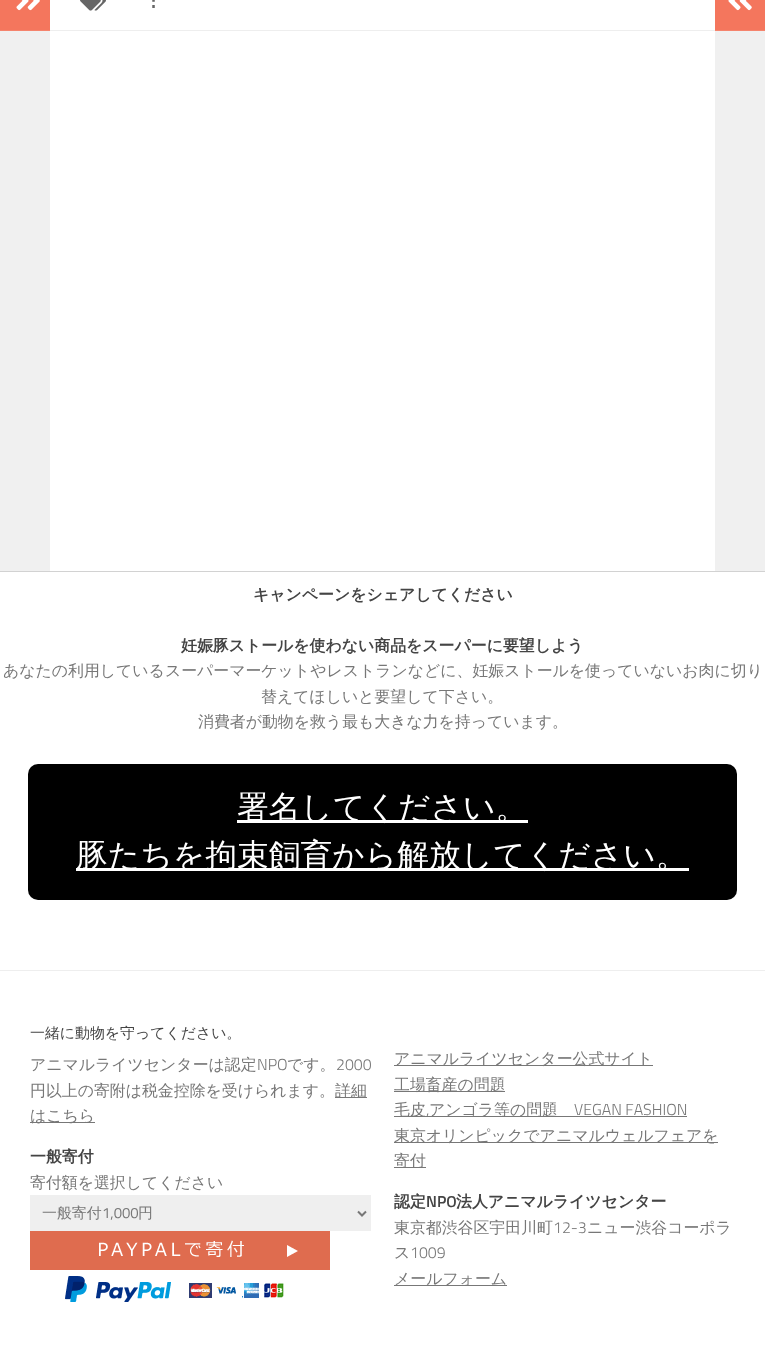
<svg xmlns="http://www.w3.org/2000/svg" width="765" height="1345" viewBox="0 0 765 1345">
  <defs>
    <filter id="blur1" x="-50%" y="-200%" width="200%" height="500%"><feGaussianBlur stdDeviation="0.5"/></filter>
  </defs>
  <rect width="100%" height="100%" fill="#eaeaea"/>
  <rect x="0" y="-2" width="765" height="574" fill="#000000" fill-opacity="0.1" filter="url(#blur1)"/>
  <rect x="50" y="0" width="665" height="571" fill="#ffffff"/>
  <rect x="0" y="0" width="50" height="30" fill="#f4765d"/>
  <rect x="0" y="30" width="50" height="1" fill="#f5846d"/>
  <image x="16" y="0" width="24" height="11" href="img1.png"/>
  <rect x="50" y="30" width="665" height="1" fill="#eeeeee"/>
  <image x="80" y="0" width="26" height="11" href="img2.png"/>
  <text x="151" y="8" font-family="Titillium" font-size="21" font-weight="600" fill="#666666">:</text>
  <rect x="715" y="0" width="50" height="30" fill="#f4765d"/>
  <rect x="715" y="30" width="50" height="1" fill="#f5846d"/>
  <image x="728" y="0" width="24" height="11" href="img3.png"/>
  <rect x="0" y="31" width="50" height="540" fill="#f0f0f0"/>
  <rect x="715" y="31" width="50" height="540" fill="#f0f0f0"/>
  <rect x="0" y="572" width="765" height="773" fill="#ffffff"/>
  <rect x="0" y="970" width="765" height="1" fill="#eeeeee"/>
  <text x="253" y="600" font-family="WenQuanYi Zen Hei" font-size="15.9" font-weight="bold" fill="#444444">キャンペーンをシェアしてください</text>
  <text x="181" y="651" font-family="WenQuanYi Zen Hei" font-size="15.9" font-weight="bold" fill="#444444">妊娠豚ストールを使わない商品をスーパーに要望しよう</text>
  <text x="3" y="676" font-family="WenQuanYi Zen Hei" font-size="15.9" font-weight="500" fill="#777777">あなたの利用しているスーパーマーケットやレストランなどに、妊娠ストールを使っていないお肉に切り</text>
  <text x="261" y="702" font-family="WenQuanYi Zen Hei" font-size="15.9" font-weight="500" fill="#777777">替えてほしいと要望して下さい。</text>
  <text x="198" y="727" font-family="WenQuanYi Zen Hei" font-size="15.9" font-weight="500" fill="#777777">消費者が動物を救う最も大きな力を持っています。</text>
  <rect x="28" y="764" width="709" height="136" rx="10" fill="#000000"/>
  <rect x="237" y="820" width="291" height="3" fill="#ffffff"/>
  <text x="237" y="818" font-family="WenQuanYi Zen Hei" font-size="31.75" font-weight="500" fill="#ffffff">署名してください。</text>
  <rect x="76" y="868" width="613" height="3" fill="#ffffff"/>
  <text x="76" y="866" font-family="WenQuanYi Zen Hei" font-size="31.75" font-weight="500" fill="#ffffff">豚たちを拘束飼育から解放してください。</text>
  <text x="30" y="1038" font-family="WenQuanYi Zen Hei" font-size="14.9" font-weight="500" fill="#444444">一緒に動物を守ってください。</text>
  <text x="30" y="1070" font-family="WenQuanYi Zen Hei" font-size="15.9" font-weight="500" fill="#777777">アニマルライツセンターは認定</text>
  <text x="257" y="1070" font-family="Titillium" font-size="15.9" font-weight="300" fill="#777777">NPO</text>
  <text x="287" y="1070" font-family="WenQuanYi Zen Hei" font-size="15.9" font-weight="500" fill="#777777">です。</text>
  <text x="336" y="1070" font-family="Titillium" font-size="15.9" font-weight="300" fill="#777777">2000</text>
  <text x="30" y="1096" font-family="WenQuanYi Zen Hei" font-size="15.9" font-weight="500" fill="#777777">円以上の寄附は税金控除を受けられます。</text>
  <rect x="335" y="1097" width="32" height="1" fill="#777777"/>
  <text x="335" y="1096" font-family="WenQuanYi Zen Hei" font-size="15.9" font-weight="500" fill="#777777">詳細</text>
  <rect x="30" y="1122" width="65" height="1" fill="#777777"/>
  <text x="30" y="1121" font-family="WenQuanYi Zen Hei" font-size="15.9" font-weight="500" fill="#777777">はこちら</text>
  <text x="30" y="1162" font-family="WenQuanYi Zen Hei" font-size="15.9" font-weight="bold" fill="#444444">一般寄付</text>
  <text x="30" y="1188" font-family="WenQuanYi Zen Hei" font-size="15.9" font-weight="500" fill="#777777">寄付額を選択してください</text>
  <rect x="30" y="1195" width="341" height="36" fill="#efefef"/>
  <path d="M358 1211.5L362 1215.5L366 1211.5" fill="none" stroke="#777777" stroke-width="2"/>
  <text x="42" y="1218" font-family="WenQuanYi Zen Hei" font-size="14.9" font-weight="500" fill="#777777">一般寄付</text>
  <text x="102" y="1218" font-family="Titillium" font-size="14.9" fill="#777777">1,000</text>
  <text x="138" y="1218" font-family="WenQuanYi Zen Hei" font-size="14.9" font-weight="500" fill="#777777">円</text>
  <image x="30" y="1231" width="300" height="71" href="img4.png"/>
  <rect x="394" y="1065" width="259" height="1" fill="#777777"/>
  <text x="394" y="1064" font-family="WenQuanYi Zen Hei" font-size="15.9" font-weight="500" fill="#777777">アニマルライツセンター公式サイト</text>
  <rect x="394" y="1091" width="111" height="1" fill="#777777"/>
  <text x="394" y="1090" font-family="WenQuanYi Zen Hei" font-size="15.9" font-weight="500" fill="#777777">工場畜産の問題</text>
  <rect x="394" y="1116" width="293" height="1" fill="#777777"/>
  <text x="394" y="1115" font-family="WenQuanYi Zen Hei" font-size="15.9" font-weight="500" fill="#777777">毛皮</text>
  <text x="426" y="1115" font-family="Titillium" font-size="15.9" font-weight="300" fill="#777777">,</text>
  <text x="429" y="1115" font-family="WenQuanYi Zen Hei" font-size="15.9" font-weight="500" fill="#777777">アンゴラ等の問題</text>
  <text x="574" y="1115" font-family="Titillium" font-size="15.9" font-weight="300" fill="#777777">VEGAN FASHION</text>
  <rect x="394" y="1142" width="324" height="1" fill="#777777"/>
  <text x="394" y="1141" font-family="WenQuanYi Zen Hei" font-size="15.9" font-weight="500" fill="#777777">東京オリンピックでアニマルウェルフェアを</text>
  <rect x="394" y="1167" width="32" height="1" fill="#777777"/>
  <text x="394" y="1166" font-family="WenQuanYi Zen Hei" font-size="15.9" font-weight="500" fill="#777777">寄付</text>
  <text x="394" y="1207" font-family="WenQuanYi Zen Hei" font-size="15.9" font-weight="bold" fill="#444444">認定</text>
  <text x="426" y="1207" font-family="Titillium" font-size="15.9" font-weight="600" fill="#444444">NPO</text>
  <text x="456" y="1207" font-family="WenQuanYi Zen Hei" font-size="15.9" font-weight="bold" fill="#444444">法人アニマルライツセンター</text>
  <text x="394" y="1233" font-family="WenQuanYi Zen Hei" font-size="15.9" font-weight="500" fill="#777777">東京都渋谷区宇田川町</text>
  <text x="553" y="1233" font-family="Titillium" font-size="15.9" font-weight="300" fill="#777777">12-3</text>
  <text x="587" y="1233" font-family="WenQuanYi Zen Hei" font-size="15.9" font-weight="500" fill="#777777">ニュー渋谷コーポラ</text>
  <text x="394" y="1258" font-family="WenQuanYi Zen Hei" font-size="15.9" font-weight="500" fill="#777777">ス</text>
  <text x="410" y="1258" font-family="Titillium" font-size="15.9" font-weight="300" fill="#777777">1009</text>
  <rect x="394" y="1285" width="113" height="1" fill="#777777"/>
  <text x="394" y="1284" font-family="WenQuanYi Zen Hei" font-size="15.9" font-weight="500" fill="#777777">メールフォーム</text>
</svg>
